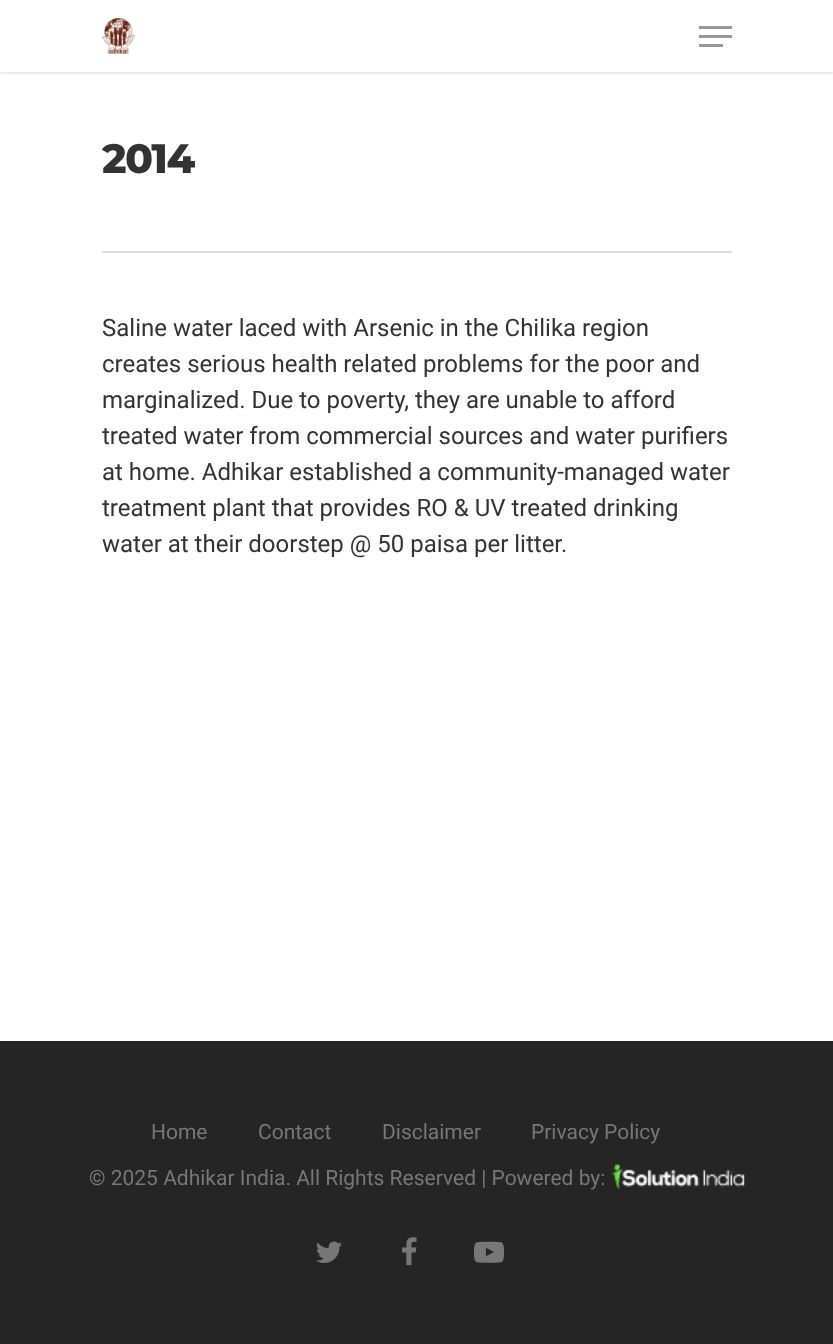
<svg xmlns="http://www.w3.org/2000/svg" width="833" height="1344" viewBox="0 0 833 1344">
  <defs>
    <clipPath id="clip1"><rect x="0" y="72" width="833" height="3"/></clipPath>
    <filter id="blur1" x="-50%" y="-200%" width="200%" height="500%"><feGaussianBlur stdDeviation="2"/></filter>
  </defs>
  <rect width="100%" height="100%" fill="#ffffff"/>
  <g clip-path="url(#clip1)">
    <rect x="0" y="0" width="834" height="72" fill="#000000" fill-opacity="0.22" filter="url(#blur1)"/>
  </g>
  <image x="102" y="18" width="33" height="36" href="img1.png"/>
  <rect x="699" y="26" width="33" height="3" fill="#999999"/>
  <rect x="699" y="44" width="24" height="3" fill="#999999"/>
  <rect x="699" y="35" width="33" height="3" fill="#999999"/>
  <rect x="102" y="251" width="630" height="2" fill="#dddddd"/>
  <text x="102" y="173" font-family="Montserrat" font-size="41" font-weight="800" letter-spacing="-1.5" fill="#333333">2014</text>
  <text x="102" y="336" font-family="Roboto" font-size="24" fill="#333333">Saline water laced with Arsenic in the Chilika region</text>
  <text x="102" y="372" font-family="Roboto" font-size="24" fill="#333333">creates serious health related problems for the poor and</text>
  <text x="102" y="408" font-family="Roboto" font-size="24" fill="#333333">marginalized. Due to poverty, they are unable to afford</text>
  <text x="102" y="444" font-family="Roboto" font-size="24" fill="#333333">treated water from commercial sources and water purifiers</text>
  <text x="102" y="480" font-family="Roboto" font-size="24" fill="#333333">at home. Adhikar established a community-managed water</text>
  <text x="102" y="516" font-family="Roboto" font-size="24" fill="#333333">treatment plant that provides RO &amp; UV treated drinking</text>
  <text x="102" y="552" font-family="Roboto" font-size="24" fill="#333333">water at their doorstep @ 50 paisa per litter.</text>
  <rect x="0" y="1041" width="833" height="303" fill="#252525"/>
  <text x="151" y="1139" font-family="Roboto" font-size="21" fill="#777777">Home</text>
  <text x="258" y="1139" font-family="Roboto" font-size="21" fill="#777777">Contact</text>
  <text x="382" y="1139" font-family="Roboto" font-size="21" fill="#777777">Disclaimer</text>
  <text x="531" y="1139" font-family="Roboto" font-size="21" fill="#777777">Privacy Policy</text>
  <text x="89" y="1185" font-family="Roboto" font-size="21" fill="#777777">© 2025 Adhikar India. All Rights Reserved | Powered by:</text>
  <image x="611" y="1164" width="134" height="26" href="img2.png"/>
  <image x="316" y="1241" width="26" height="22" href="img3.png"/>
  <image x="402" y="1237" width="15" height="29" href="img4.png"/>
  <image x="474" y="1241" width="30" height="22" href="img5.png"/>
</svg>
